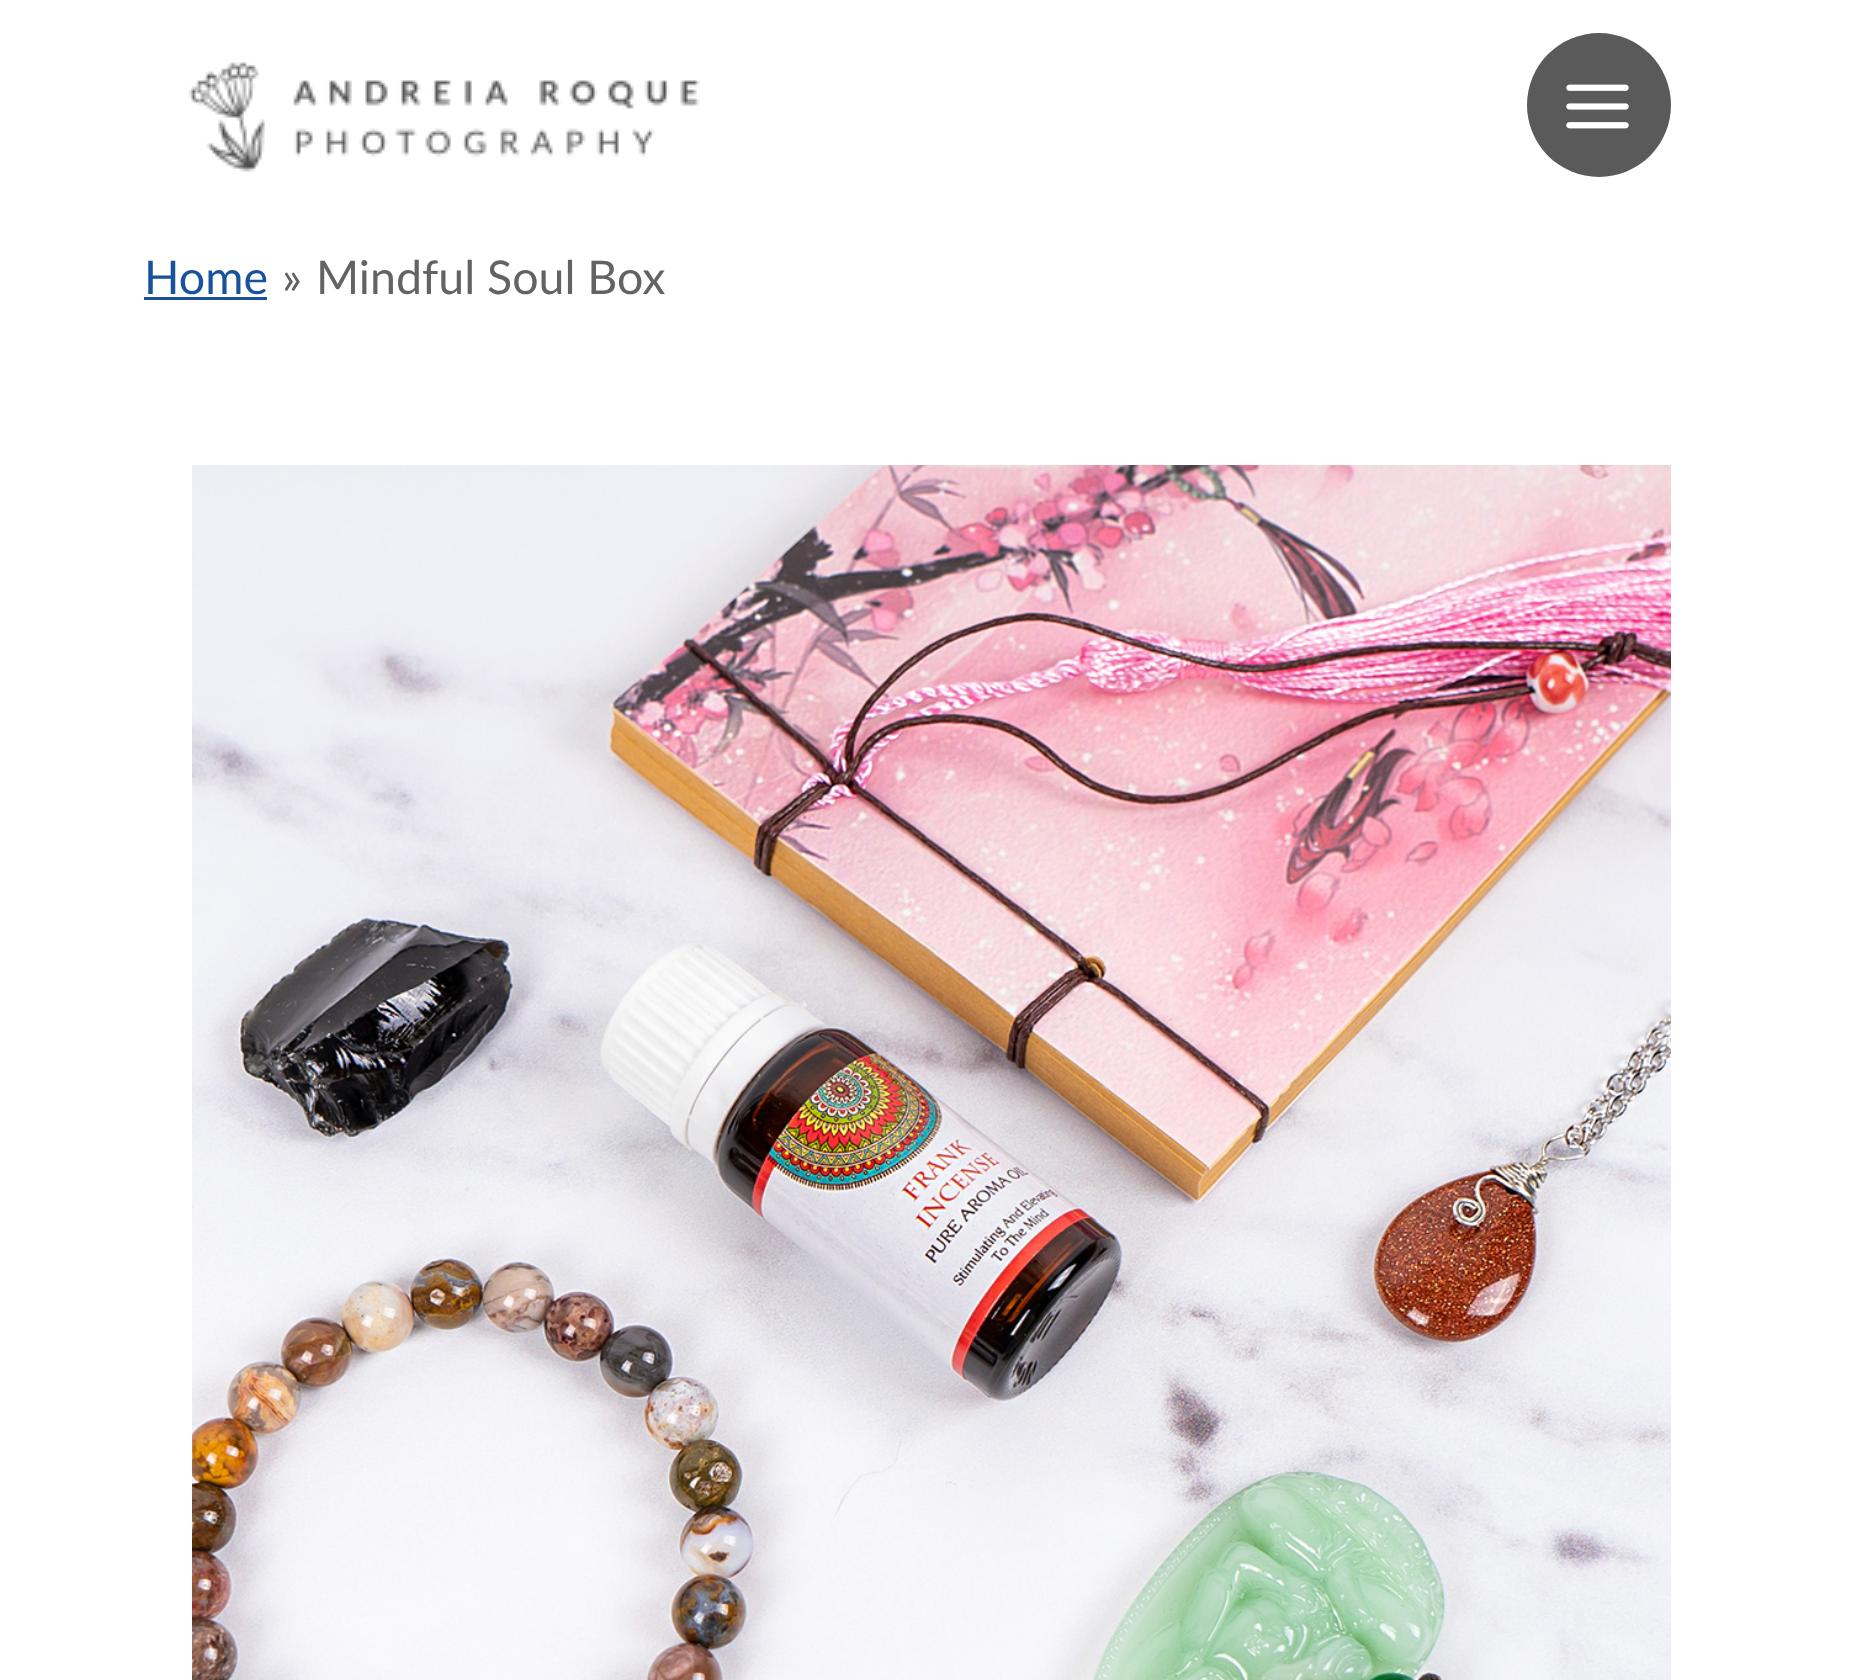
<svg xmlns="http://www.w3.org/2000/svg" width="1859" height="1680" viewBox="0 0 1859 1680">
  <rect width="100%" height="100%" fill="#ffffff"/>
  <image x="188" y="62" width="512" height="110" href="img1.png"/>
  <circle cx="1599" cy="105" r="72" fill="#5a5a5a"/>
  <image x="1566" y="84" width="63" height="45" href="img2.png"/>
  <text x="144" y="294" font-family="Lato" font-size="46.5" fill="#18529d">Home</text>
  <rect x="144" y="297" width="123" height="3" fill="#18529d"/>
  <text x="282" y="294" font-family="Lato" font-size="46.5" fill="#636363">»</text>
  <text x="316" y="294" font-family="Lato" font-size="46.5" fill="#636363">Mindful Soul Box</text>
  <image x="192" y="465" width="1479" height="1215" href="img3.png"/>
</svg>
